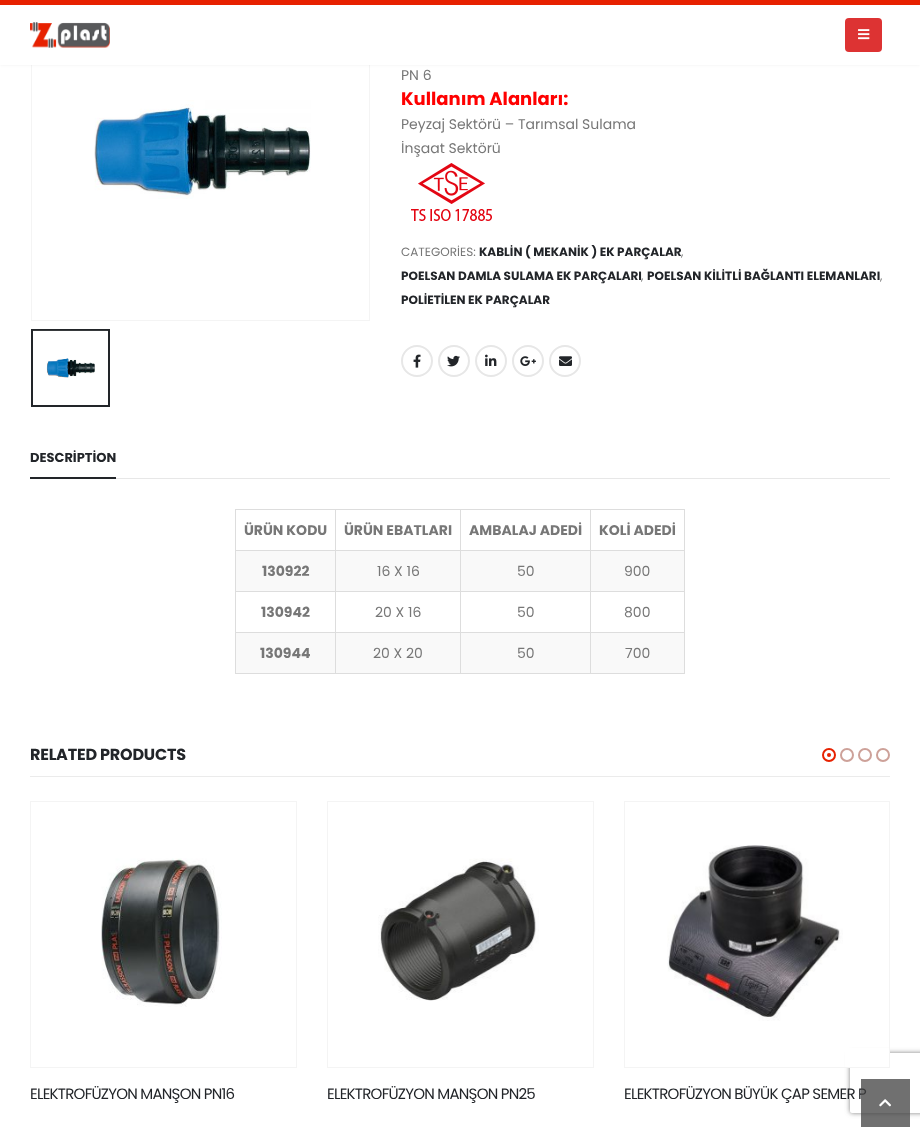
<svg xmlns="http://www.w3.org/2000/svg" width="920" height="1127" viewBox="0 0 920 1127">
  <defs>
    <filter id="blur1" x="-50%" y="-200%" width="200%" height="500%"><feGaussianBlur stdDeviation="1.5"/></filter>
    <clipPath id="clip1"><path d="M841 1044H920V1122H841ZM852 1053H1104C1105 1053 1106 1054 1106 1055V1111C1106 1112 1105 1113 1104 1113H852C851 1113 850 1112 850 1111V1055C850 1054 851 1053 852 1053Z" clip-rule="evenodd"/></clipPath>
    <filter id="blur2" x="-50%" y="-200%" width="200%" height="500%"><feGaussianBlur stdDeviation="2.5"/></filter>
  </defs>
  <rect width="100%" height="100%" fill="#ffffff"/>
  <rect x="31.5" y="-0.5" width="338" height="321" fill="none" stroke="#f4f4f4"/>
  <rect x="0" y="0" width="920" height="65" fill="#000000" fill-opacity="0.06" filter="url(#blur1)"/>
  <rect x="0" y="5" width="920" height="60" fill="#ffffff"/>
  <rect x="0" y="0" width="920" height="5" fill="#e72100"/>
  <image x="30" y="22" width="80" height="26" href="img1.png"/>
  <rect x="845" y="18" width="37" height="34" rx="4" fill="#dd3333"/>
  <image x="858" y="29" width="12" height="11" href="img2.png"/>
  <image x="94" y="100" width="217" height="99" href="img3.png"/>
  <rect x="32" y="330" width="77" height="76" fill="none" stroke="#222529" stroke-width="2"/>
  <image x="33" y="330" width="75" height="48" href="img4.png"/>
  <text x="401" y="80" font-family="Poppins" font-size="14" fill="#777777">PN 6</text>
  <text x="401" y="105" font-family="Poppins" font-size="18" font-weight="bold" fill="#ff0000">Kullanım Alanları:</text>
  <text x="401" y="129" font-family="Poppins" font-size="14" fill="#777777">Peyzaj Sektörü – Tarımsal Sulama</text>
  <text x="401" y="153" font-family="Poppins" font-size="14" fill="#777777">İnşaat Sektörü</text>
  <image x="411" y="163" width="81" height="58" href="img5.png"/>
  <text x="401" y="256" font-family="Poppins" font-size="12" fill="#777777">CATEGORİES:</text>
  <text x="479" y="256" font-family="Poppins" font-size="12" font-weight="bold" fill="#222529">KABLİN ( MEKANİK ) EK PARÇALAR</text>
  <text x="681" y="256" font-family="Poppins" font-size="12" fill="#777777">,</text>
  <text x="401" y="280" font-family="Poppins" font-size="12" font-weight="bold" fill="#222529">POELSAN DAMLA SULAMA EK PARÇALARI</text>
  <text x="641" y="280" font-family="Poppins" font-size="12" fill="#777777">,</text>
  <text x="647" y="280" font-family="Poppins" font-size="12" font-weight="bold" fill="#222529">POELSAN KİLİTLİ BAĞLANTI ELEMANLARI</text>
  <text x="880" y="280" font-family="Poppins" font-size="12" fill="#777777">,</text>
  <text x="401" y="304" font-family="Poppins" font-size="12" font-weight="bold" fill="#222529">POLİETİLEN EK PARÇALAR</text>
  <circle cx="417" cy="361" r="15" fill="none" stroke="#e7e7e7" stroke-width="2"/>
  <image x="413" y="354" width="8" height="14" href="img6.png"/>
  <circle cx="454" cy="361" r="15" fill="none" stroke="#e7e7e7" stroke-width="2"/>
  <image x="447" y="355" width="13" height="12" href="img7.png"/>
  <circle cx="491" cy="361" r="15" fill="none" stroke="#e7e7e7" stroke-width="2"/>
  <image x="485" y="354" width="12" height="12" href="img8.png"/>
  <circle cx="528" cy="361" r="15" fill="none" stroke="#e7e7e7" stroke-width="2"/>
  <image x="520" y="356" width="16" height="10" href="img9.png"/>
  <circle cx="565" cy="361" r="15" fill="none" stroke="#e7e7e7" stroke-width="2"/>
  <image x="559" y="356" width="13" height="10" href="img10.png"/>
  <rect x="30" y="477" width="86" height="2" fill="#222529"/>
  <text x="30" y="462" font-family="Poppins" font-size="13" font-weight="bold" fill="#222529">DESCRİPTİON</text>
  <rect x="116" y="478" width="774" height="1" fill="#e7e7e7"/>
  <rect x="590" y="509" width="95" height="1" fill="#dddddd"/>
  <rect x="590" y="550" width="95" height="1" fill="#dddddd"/>
  <rect x="236" y="551" width="448" height="40" fill="#f9f9f9"/>
  <rect x="590" y="591" width="95" height="1" fill="#dddddd"/>
  <rect x="590" y="632" width="95" height="1" fill="#dddddd"/>
  <rect x="236" y="633" width="448" height="40" fill="#f9f9f9"/>
  <rect x="684" y="632" width="1" height="42" fill="#dddddd"/>
  <rect x="590" y="673" width="95" height="1" fill="#dddddd"/>
  <rect x="590" y="632" width="1" height="42" fill="#dddddd"/>
  <rect x="460" y="632" width="131" height="1" fill="#dddddd"/>
  <rect x="590" y="591" width="1" height="42" fill="#dddddd"/>
  <rect x="460" y="591" width="131" height="1" fill="#dddddd"/>
  <rect x="590" y="550" width="1" height="42" fill="#dddddd"/>
  <rect x="460" y="550" width="131" height="1" fill="#dddddd"/>
  <rect x="590" y="509" width="1" height="42" fill="#dddddd"/>
  <rect x="460" y="509" width="131" height="1" fill="#dddddd"/>
  <rect x="460" y="673" width="131" height="1" fill="#dddddd"/>
  <rect x="460" y="632" width="1" height="42" fill="#dddddd"/>
  <rect x="335" y="632" width="126" height="1" fill="#dddddd"/>
  <rect x="460" y="591" width="1" height="42" fill="#dddddd"/>
  <rect x="335" y="591" width="126" height="1" fill="#dddddd"/>
  <rect x="460" y="550" width="1" height="42" fill="#dddddd"/>
  <rect x="335" y="550" width="126" height="1" fill="#dddddd"/>
  <rect x="460" y="509" width="1" height="42" fill="#dddddd"/>
  <rect x="335" y="509" width="126" height="1" fill="#dddddd"/>
  <rect x="335" y="673" width="126" height="1" fill="#dddddd"/>
  <rect x="335" y="632" width="1" height="42" fill="#dddddd"/>
  <rect x="235" y="632" width="101" height="1" fill="#dddddd"/>
  <rect x="335" y="591" width="1" height="42" fill="#dddddd"/>
  <rect x="235" y="591" width="101" height="1" fill="#dddddd"/>
  <rect x="335" y="550" width="1" height="42" fill="#dddddd"/>
  <rect x="235" y="550" width="101" height="1" fill="#dddddd"/>
  <rect x="335" y="509" width="1" height="42" fill="#dddddd"/>
  <rect x="235" y="509" width="101" height="1" fill="#dddddd"/>
  <rect x="235" y="673" width="101" height="1" fill="#dddddd"/>
  <rect x="235" y="632" width="1" height="42" fill="#dddddd"/>
  <rect x="235" y="591" width="1" height="42" fill="#dddddd"/>
  <rect x="235" y="550" width="1" height="42" fill="#dddddd"/>
  <rect x="235" y="509" width="1" height="42" fill="#dddddd"/>
  <text x="244" y="535" font-family="Poppins" font-size="14" font-weight="bold" fill="#777777">ÜRÜN KODU</text>
  <text x="344" y="535" font-family="Poppins" font-size="14" font-weight="bold" fill="#777777">ÜRÜN EBATLARI</text>
  <text x="469" y="535" font-family="Poppins" font-size="14" font-weight="bold" fill="#777777">AMBALAJ ADEDİ</text>
  <rect x="684" y="591" width="1" height="42" fill="#dddddd"/>
  <rect x="684" y="550" width="1" height="42" fill="#dddddd"/>
  <rect x="684" y="509" width="1" height="42" fill="#dddddd"/>
  <text x="599" y="535" font-family="Poppins" font-size="14" font-weight="bold" fill="#777777">KOLİ ADEDİ</text>
  <text x="262" y="576" font-family="Poppins" font-size="14" font-weight="bold" fill="#777777">130922</text>
  <text x="377" y="576" font-family="Poppins" font-size="14" fill="#777777">16 X 16</text>
  <text x="517" y="576" font-family="Poppins" font-size="14" fill="#777777">50</text>
  <text x="624" y="576" font-family="Poppins" font-size="14" fill="#777777">900</text>
  <text x="261" y="617" font-family="Poppins" font-size="14" font-weight="bold" fill="#777777">130942</text>
  <text x="375" y="617" font-family="Poppins" font-size="14" fill="#777777">20 X 16</text>
  <text x="517" y="617" font-family="Poppins" font-size="14" fill="#777777">50</text>
  <text x="624" y="617" font-family="Poppins" font-size="14" fill="#777777">800</text>
  <text x="260" y="658" font-family="Poppins" font-size="14" font-weight="bold" fill="#777777">130944</text>
  <text x="373" y="658" font-family="Poppins" font-size="14" fill="#777777">20 X 20</text>
  <text x="517" y="658" font-family="Poppins" font-size="14" fill="#777777">50</text>
  <text x="625" y="658" font-family="Poppins" font-size="14" fill="#777777">700</text>
  <rect x="30" y="776" width="860" height="1" fill="#ebebeb"/>
  <text x="30" y="760" font-family="Poppins" font-size="16" font-weight="bold" letter-spacing="-0.2" fill="#222529">RELATED PRODUCTS</text>
  <circle cx="829" cy="755" r="6" fill="none" stroke="#e72100" stroke-width="2"/>
  <circle cx="829" cy="755" r="2" fill="#e72100"/>
  <circle cx="847" cy="755" r="6" fill="none" stroke="#cda199" stroke-width="2"/>
  <circle cx="865" cy="755" r="6" fill="none" stroke="#cda199" stroke-width="2"/>
  <circle cx="883" cy="755" r="6" fill="none" stroke="#cda199" stroke-width="2"/>
  <rect x="30.5" y="801.5" width="266" height="266" fill="none" stroke="#f4f4f4"/>
  <image x="101" y="858" width="121" height="149" href="img11.png"/>
  <text x="30" y="1099" font-family="Poppins" font-size="15" letter-spacing="-0.75" fill="#222529">ELEKTROFÜZYON MANŞON PN16</text>
  <rect x="327.5" y="801.5" width="266" height="266" fill="none" stroke="#f4f4f4"/>
  <image x="378" y="858" width="161" height="143" href="img12.png"/>
  <text x="327" y="1099" font-family="Poppins" font-size="15" letter-spacing="-0.75" fill="#222529">ELEKTROFÜZYON MANŞON PN25</text>
  <g clip-path="url(#clip1)">
    <rect x="850" y="1053" width="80" height="60" rx="2" fill="#808080" filter="url(#blur2)"/>
  </g>
  <rect x="845" y="1048" width="44" height="19" fill="#ffffff"/>
  <rect x="624.5" y="801.5" width="265" height="266" fill="none" stroke="#f4f4f4"/>
  <image x="667" y="845" width="176" height="176" href="img13.png"/>
  <text x="624" y="1099" font-family="Poppins" font-size="15" letter-spacing="-0.75" fill="#222529">ELEKTROFÜZYON BÜYÜK ÇAP SEMER P</text>
  <rect x="861" y="1079" width="49" height="48" fill="#404040" fill-opacity="0.75"/>
  <image x="879" y="1099" width="12" height="8" href="img14.png"/>
</svg>
